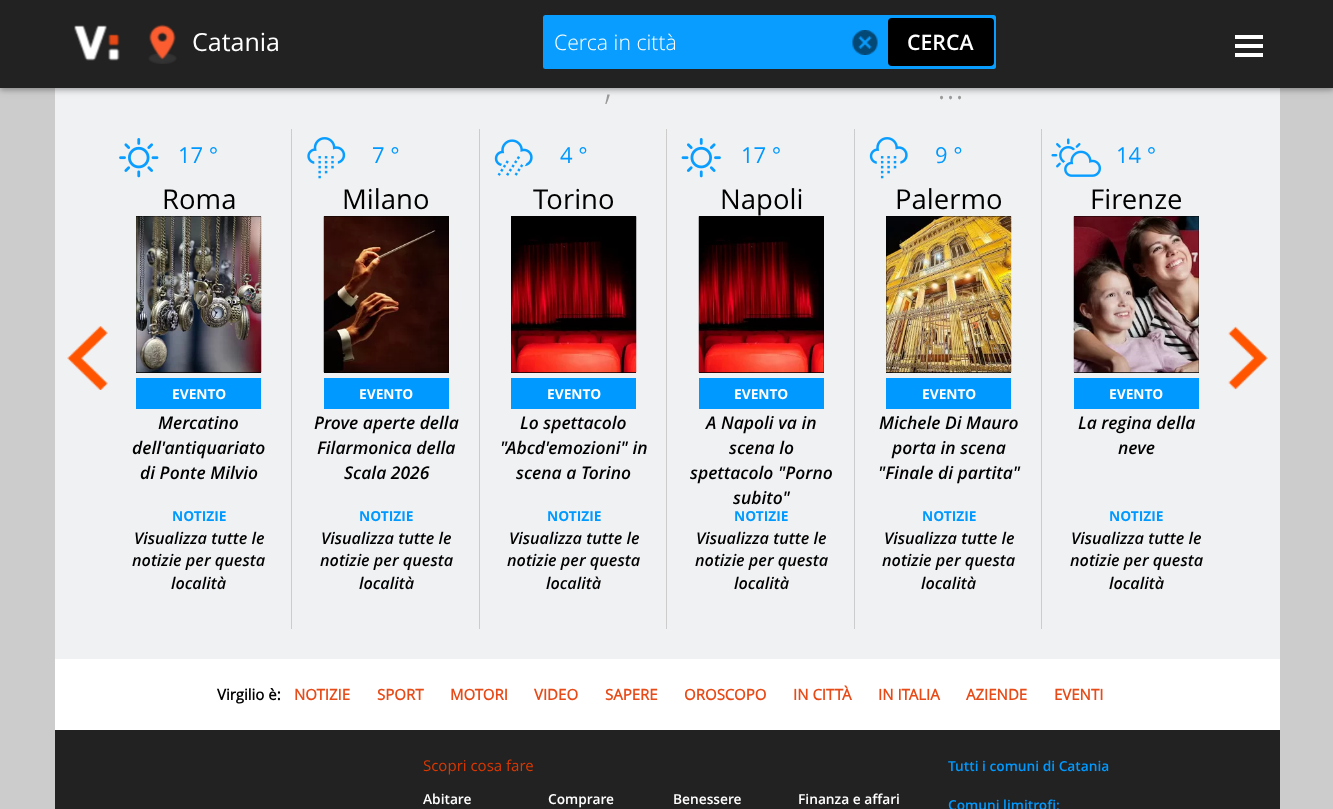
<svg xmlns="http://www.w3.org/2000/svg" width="1333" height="809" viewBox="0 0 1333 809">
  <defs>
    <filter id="blur1" x="-50%" y="-200%" width="200%" height="500%"><feGaussianBlur stdDeviation="4"/></filter>
    <filter id="blur2" x="-50%" y="-200%" width="200%" height="500%"><feGaussianBlur stdDeviation="2.5"/></filter>
  </defs>
  <rect width="100%" height="100%" fill="#cccccc"/>
  <rect x="55" y="659" width="1225" height="71" fill="#ffffff"/>
  <rect x="55" y="88" width="1225" height="571" fill="#f0f1f3"/>
  <rect x="0" y="3" width="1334" height="87" fill="#000000" fill-opacity="0.12" filter="url(#blur1)"/>
  <rect x="0" y="3" width="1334" height="87" fill="#000000" fill-opacity="0.24" filter="url(#blur2)"/>
  <rect x="0" y="0" width="1333" height="88" fill="#222222"/>
  <image x="74" y="25" width="46" height="36" href="img1.png"/>
  <image x="148" y="24" width="29" height="40" href="img2.png"/>
  <text x="192" y="51" font-family="Open Sans" font-size="25" fill="#ffffff">Catania</text>
  <rect x="543" y="15" width="453" height="54" rx="2.5" fill="#099dff"/>
  <text x="554" y="50" font-family="Open Sans" font-size="21.25" font-weight="300" fill="#ffffff">Cerca in città</text>
  <image x="852" y="30" width="26" height="25" href="img3.png"/>
  <rect x="888" y="18" width="106" height="48" rx="4" fill="#000000"/>
  <text x="907" y="50" font-family="Open Sans" font-size="21.25" font-weight="600" fill="#ffffff">CERCA</text>
  <rect x="1235" y="35" width="28" height="4" fill="#ffffff"/>
  <rect x="1235" y="44" width="28" height="4" fill="#ffffff"/>
  <rect x="1235" y="53" width="28" height="4" fill="#ffffff"/>
  <text x="604" y="99" font-family="Open Sans" font-size="38" font-weight="300" fill="#999999">,</text>
  <text x="937" y="99" font-family="Open Sans" font-size="38" font-weight="300" fill="#999999">...</text>
  <image x="67" y="326" width="41" height="64" href="img4.png"/>
  <rect x="291" y="129" width="1" height="500" fill="#cccccc"/>
  <image x="119" y="138" width="40" height="40" href="img5.png"/>
  <text x="178" y="163" font-family="Open Sans" font-size="22" fill="#0099ff">17 °</text>
  <text x="162" y="209" font-family="Open Sans" font-size="27.5" fill="#000000">Roma</text>
  <rect x="136" y="216" width="125" height="157" fill="#000000"/>
  <image x="136" y="216" width="126" height="157" href="img6.png"/>
  <rect x="136" y="378" width="125" height="31" fill="#0099ff"/>
  <text x="172" y="399" font-family="'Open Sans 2'" font-size="13.75" font-weight="bold" fill="#ffffff">EVENTO</text>
  <text x="158" y="429" font-family="Open Sans" font-size="17.5" font-weight="600" font-style="italic" fill="#000000">Mercatino</text>
  <text x="132" y="454" font-family="Open Sans" font-size="17.5" font-weight="600" font-style="italic" fill="#000000">dell'antiquariato</text>
  <text x="140" y="479" font-family="Open Sans" font-size="17.5" font-weight="600" font-style="italic" fill="#000000">di Ponte Milvio</text>
  <text x="172" y="521" font-family="'Open Sans 2'" font-size="13.75" font-weight="bold" fill="#0099ff">NOTIZIE</text>
  <text x="134" y="544" font-family="Open Sans" font-size="16.25" font-weight="600" font-style="italic" fill="#000000">Visualizza tutte le</text>
  <text x="132" y="566" font-family="Open Sans" font-size="16.25" font-weight="600" font-style="italic" fill="#000000">notizie per questa</text>
  <text x="171" y="589" font-family="Open Sans" font-size="16.25" font-weight="600" font-style="italic" fill="#000000">località</text>
  <rect x="479" y="129" width="1" height="500" fill="#cccccc"/>
  <image x="307" y="137" width="39" height="42" href="img7.png"/>
  <text x="372" y="163" font-family="Open Sans" font-size="22" fill="#0099ff">7 °</text>
  <text x="342" y="209" font-family="Open Sans" font-size="27.5" fill="#000000">Milano</text>
  <rect x="324" y="216" width="125" height="157" fill="#000000"/>
  <image x="323" y="216" width="126" height="157" href="img8.png"/>
  <rect x="324" y="378" width="125" height="31" fill="#0099ff"/>
  <text x="359" y="399" font-family="'Open Sans 2'" font-size="13.75" font-weight="bold" fill="#ffffff">EVENTO</text>
  <text x="314" y="429" font-family="Open Sans" font-size="17.5" font-weight="600" font-style="italic" fill="#000000">Prove aperte della</text>
  <text x="317" y="454" font-family="Open Sans" font-size="17.5" font-weight="600" font-style="italic" fill="#000000">Filarmonica della</text>
  <text x="344" y="479" font-family="Open Sans" font-size="17.5" font-weight="600" font-style="italic" fill="#000000">Scala 2026</text>
  <text x="359" y="521" font-family="'Open Sans 2'" font-size="13.75" font-weight="bold" fill="#0099ff">NOTIZIE</text>
  <text x="321" y="544" font-family="Open Sans" font-size="16.25" font-weight="600" font-style="italic" fill="#000000">Visualizza tutte le</text>
  <text x="320" y="566" font-family="Open Sans" font-size="16.25" font-weight="600" font-style="italic" fill="#000000">notizie per questa</text>
  <text x="359" y="589" font-family="Open Sans" font-size="16.25" font-weight="600" font-style="italic" fill="#000000">località</text>
  <rect x="666" y="129" width="1" height="500" fill="#cccccc"/>
  <image x="494" y="139" width="39" height="37" href="img9.png"/>
  <text x="560" y="163" font-family="Open Sans" font-size="22" fill="#0099ff">4 °</text>
  <text x="533" y="209" font-family="Open Sans" font-size="27.5" fill="#000000">Torino</text>
  <rect x="511" y="216" width="125" height="157" fill="#000000"/>
  <image x="511" y="216" width="126" height="157" href="img10.png"/>
  <rect x="511" y="378" width="125" height="31" fill="#0099ff"/>
  <text x="547" y="399" font-family="'Open Sans 2'" font-size="13.75" font-weight="bold" fill="#ffffff">EVENTO</text>
  <text x="520" y="429" font-family="Open Sans" font-size="17.5" font-weight="600" font-style="italic" fill="#000000">Lo spettacolo</text>
  <text x="500" y="454" font-family="Open Sans" font-size="17.5" font-weight="600" font-style="italic" fill="#000000">"Abcd'emozioni" in</text>
  <text x="516" y="479" font-family="Open Sans" font-size="17.5" font-weight="600" font-style="italic" fill="#000000">scena a Torino</text>
  <text x="547" y="521" font-family="'Open Sans 2'" font-size="13.75" font-weight="bold" fill="#0099ff">NOTIZIE</text>
  <text x="509" y="544" font-family="Open Sans" font-size="16.25" font-weight="600" font-style="italic" fill="#000000">Visualizza tutte le</text>
  <text x="507" y="566" font-family="Open Sans" font-size="16.25" font-weight="600" font-style="italic" fill="#000000">notizie per questa</text>
  <text x="546" y="589" font-family="Open Sans" font-size="16.25" font-weight="600" font-style="italic" fill="#000000">località</text>
  <rect x="854" y="129" width="1" height="500" fill="#cccccc"/>
  <image x="681" y="138" width="40" height="40" href="img11.png"/>
  <text x="741" y="163" font-family="Open Sans" font-size="22" fill="#0099ff">17 °</text>
  <text x="720" y="209" font-family="Open Sans" font-size="27.5" fill="#000000">Napoli</text>
  <rect x="699" y="216" width="125" height="157" fill="#000000"/>
  <image x="698" y="216" width="126" height="157" href="img12.png"/>
  <rect x="699" y="378" width="125" height="31" fill="#0099ff"/>
  <text x="734" y="399" font-family="'Open Sans 2'" font-size="13.75" font-weight="bold" fill="#ffffff">EVENTO</text>
  <text x="706" y="429" font-family="Open Sans" font-size="17.5" font-weight="600" font-style="italic" fill="#000000">A Napoli va in</text>
  <text x="729" y="454" font-family="Open Sans" font-size="17.5" font-weight="600" font-style="italic" fill="#000000">scena lo</text>
  <text x="690" y="479" font-family="Open Sans" font-size="17.5" font-weight="600" font-style="italic" fill="#000000">spettacolo "Porno</text>
  <text x="733" y="504" font-family="Open Sans" font-size="17.5" font-weight="600" font-style="italic" fill="#000000">subito"</text>
  <text x="734" y="521" font-family="'Open Sans 2'" font-size="13.75" font-weight="bold" fill="#0099ff">NOTIZIE</text>
  <text x="696" y="544" font-family="Open Sans" font-size="16.25" font-weight="600" font-style="italic" fill="#000000">Visualizza tutte le</text>
  <text x="695" y="566" font-family="Open Sans" font-size="16.25" font-weight="600" font-style="italic" fill="#000000">notizie per questa</text>
  <text x="734" y="589" font-family="Open Sans" font-size="16.25" font-weight="600" font-style="italic" fill="#000000">località</text>
  <rect x="1041" y="129" width="1" height="500" fill="#cccccc"/>
  <image x="869" y="137" width="39" height="42" href="img13.png"/>
  <text x="935" y="163" font-family="Open Sans" font-size="22" fill="#0099ff">9 °</text>
  <text x="895" y="209" font-family="Open Sans" font-size="27.5" fill="#000000">Palermo</text>
  <rect x="886" y="216" width="125" height="157" fill="#000000"/>
  <image x="886" y="216" width="126" height="157" href="img14.png"/>
  <rect x="886" y="378" width="125" height="31" fill="#0099ff"/>
  <text x="922" y="399" font-family="'Open Sans 2'" font-size="13.75" font-weight="bold" fill="#ffffff">EVENTO</text>
  <text x="879" y="429" font-family="Open Sans" font-size="17.5" font-weight="600" font-style="italic" fill="#000000">Michele Di Mauro</text>
  <text x="892" y="454" font-family="Open Sans" font-size="17.5" font-weight="600" font-style="italic" fill="#000000">porta in scena</text>
  <text x="878" y="479" font-family="Open Sans" font-size="17.5" font-weight="600" font-style="italic" fill="#000000">"Finale di partita"</text>
  <text x="922" y="521" font-family="'Open Sans 2'" font-size="13.75" font-weight="bold" fill="#0099ff">NOTIZIE</text>
  <text x="884" y="544" font-family="Open Sans" font-size="16.25" font-weight="600" font-style="italic" fill="#000000">Visualizza tutte le</text>
  <text x="882" y="566" font-family="Open Sans" font-size="16.25" font-weight="600" font-style="italic" fill="#000000">notizie per questa</text>
  <text x="921" y="589" font-family="Open Sans" font-size="16.25" font-weight="600" font-style="italic" fill="#000000">località</text>
  <image x="1051" y="138" width="50" height="39" href="img15.png"/>
  <text x="1116" y="163" font-family="Open Sans" font-size="22" fill="#0099ff">14 °</text>
  <text x="1090" y="209" font-family="Open Sans" font-size="27.5" fill="#000000">Firenze</text>
  <rect x="1074" y="216" width="125" height="157" fill="#000000"/>
  <image x="1073" y="216" width="126" height="157" href="img16.png"/>
  <rect x="1074" y="378" width="125" height="31" fill="#0099ff"/>
  <text x="1109" y="399" font-family="'Open Sans 2'" font-size="13.75" font-weight="bold" fill="#ffffff">EVENTO</text>
  <text x="1078" y="429" font-family="Open Sans" font-size="17.5" font-weight="600" font-style="italic" fill="#000000">La regina della</text>
  <text x="1118" y="454" font-family="Open Sans" font-size="17.5" font-weight="600" font-style="italic" fill="#000000">neve</text>
  <text x="1109" y="521" font-family="'Open Sans 2'" font-size="13.75" font-weight="bold" fill="#0099ff">NOTIZIE</text>
  <text x="1071" y="544" font-family="Open Sans" font-size="16.25" font-weight="600" font-style="italic" fill="#000000">Visualizza tutte le</text>
  <text x="1070" y="566" font-family="Open Sans" font-size="16.25" font-weight="600" font-style="italic" fill="#000000">notizie per questa</text>
  <text x="1109" y="589" font-family="Open Sans" font-size="16.25" font-weight="600" font-style="italic" fill="#000000">località</text>
  <image x="1228" y="326" width="40" height="64" href="img17.png"/>
  <text x="217" y="700" font-family="Open Sans" font-size="15" font-weight="bold" fill="#000000">Virgilio è:</text>
  <text x="294" y="700" font-family="Open Sans" font-size="15" font-weight="bold" fill="#e74b18">NOTIZIE</text>
  <text x="377" y="700" font-family="Open Sans" font-size="15" font-weight="bold" fill="#e74b18">SPORT</text>
  <text x="450" y="700" font-family="Open Sans" font-size="15" font-weight="bold" fill="#e74b18">MOTORI</text>
  <text x="534" y="700" font-family="Open Sans" font-size="15" font-weight="bold" fill="#e74b18">VIDEO</text>
  <text x="605" y="700" font-family="Open Sans" font-size="15" font-weight="bold" fill="#e74b18">SAPERE</text>
  <text x="684" y="700" font-family="Open Sans" font-size="15" font-weight="bold" fill="#e74b18">OROSCOPO</text>
  <text x="793" y="700" font-family="Open Sans" font-size="15" font-weight="bold" fill="#e74b18">IN CITTÀ</text>
  <text x="878" y="700" font-family="Open Sans" font-size="15" font-weight="bold" fill="#e74b18">IN ITALIA</text>
  <text x="966" y="700" font-family="Open Sans" font-size="15" font-weight="bold" fill="#e74b18">AZIENDE</text>
  <text x="1054" y="700" font-family="Open Sans" font-size="15" font-weight="bold" fill="#e74b18">EVENTI</text>
  <rect x="55" y="730" width="1225" height="79" fill="#222222"/>
  <text x="423" y="771" font-family="Open Sans" font-size="15" fill="#da3800">Scopri cosa fare</text>
  <text x="423" y="804" font-family="Open Sans" font-size="13.75" font-weight="600" fill="#ffffff">Abitare</text>
  <text x="548" y="804" font-family="Open Sans" font-size="13.75" font-weight="600" fill="#ffffff">Comprare</text>
  <text x="673" y="804" font-family="Open Sans" font-size="13.75" font-weight="600" fill="#ffffff">Benessere</text>
  <text x="798" y="804" font-family="Open Sans" font-size="13.75" font-weight="600" fill="#ffffff">Finanza e affari</text>
  <text x="948" y="771" font-family="Open Sans" font-size="13.75" font-weight="600" fill="#0099ff">Tutti i comuni di Catania</text>
  <text x="948" y="810" font-family="Open Sans" font-size="13.75" font-weight="600" fill="#0099ff">Comuni limitrofi:</text>
</svg>
